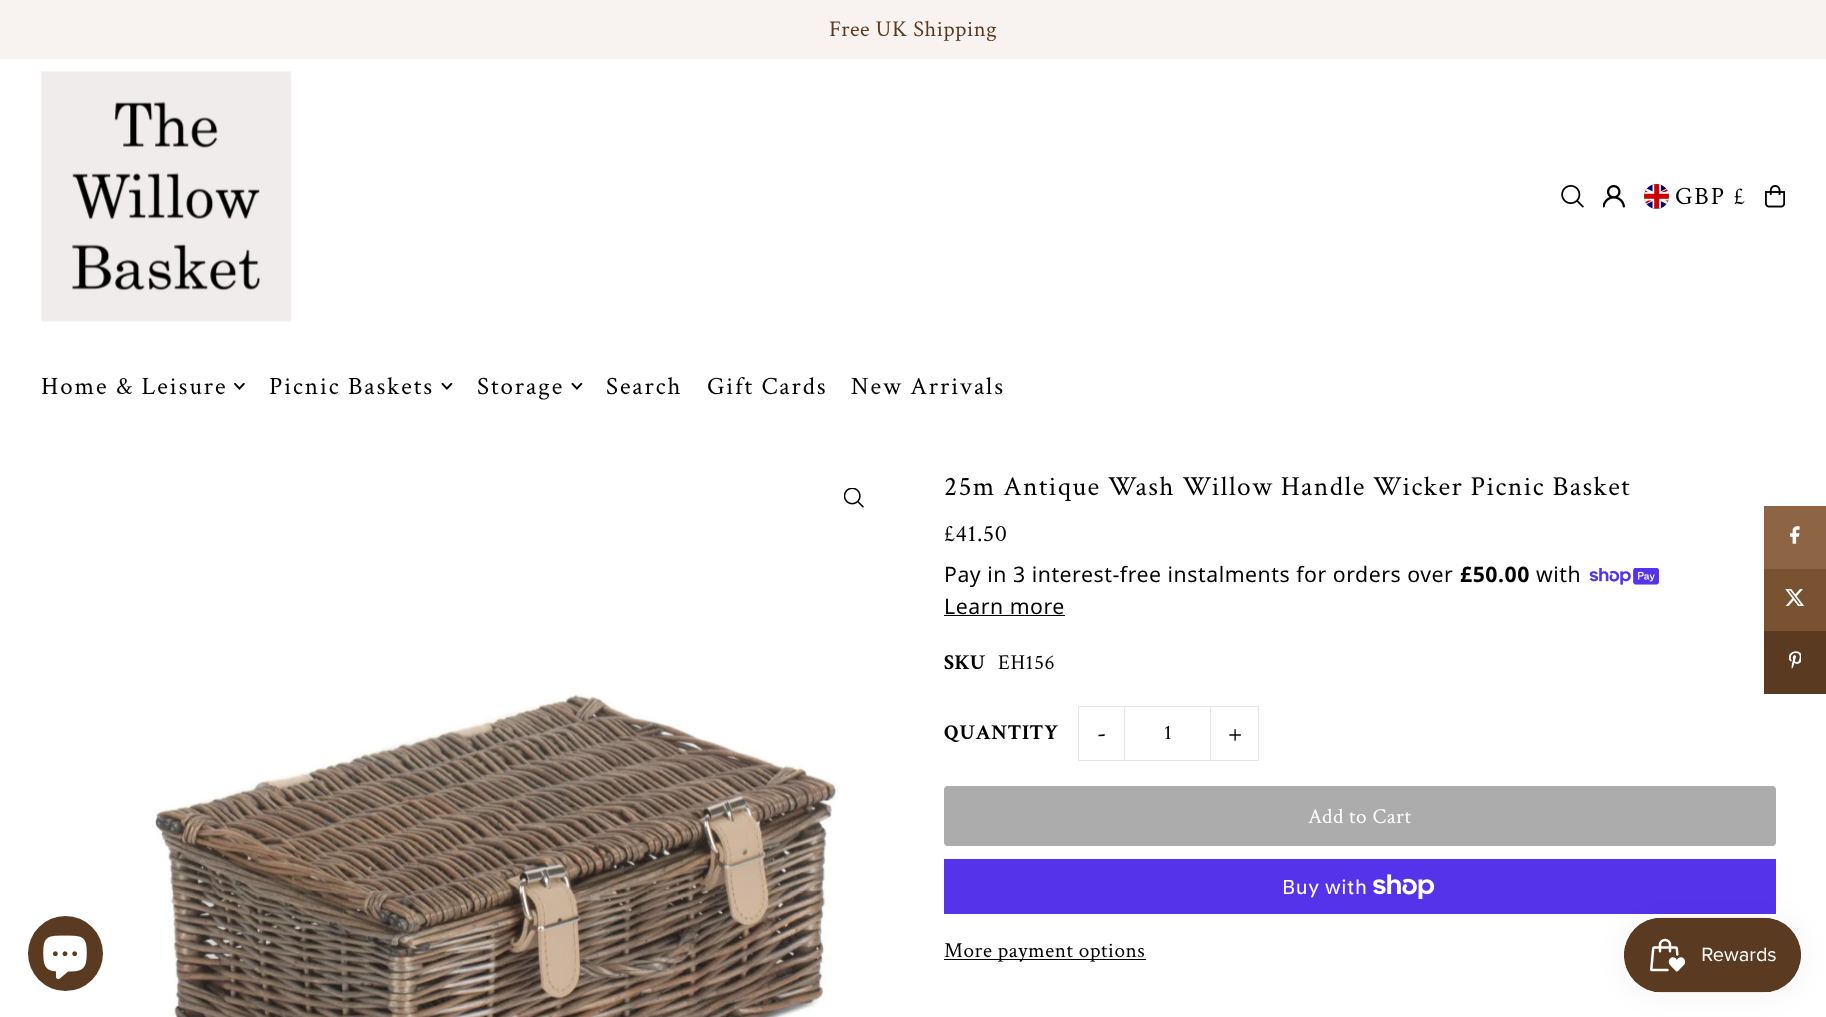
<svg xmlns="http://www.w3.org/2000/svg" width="1826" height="1017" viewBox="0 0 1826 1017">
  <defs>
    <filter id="blur1" x="-50%" y="-200%" width="200%" height="500%"><feGaussianBlur stdDeviation="15.5"/></filter>
  </defs>
  <rect width="100%" height="100%" fill="#ffffff"/>
  <rect x="0" y="0" width="1826" height="59" fill="#f8f3f0"/>
  <text x="829" y="36" font-family="Crimson Text" font-size="22.5" letter-spacing="0.53" fill="#5a3b21">Free UK Shipping</text>
  <image x="41" y="71" width="251" height="251" href="img1.png"/>
  <image x="1561" y="185" width="23" height="23" href="img2.png"/>
  <image x="1603" y="185" width="22" height="23" href="img3.png"/>
  <image x="1644" y="184" width="25" height="25" href="img4.png"/>
  <text x="1675" y="204" font-family="Crimson Text" font-size="25" letter-spacing="1.9" fill="#000000">GBP £</text>
  <image x="1765" y="185" width="20" height="23" href="img5.png"/>
  <text x="41" y="394" font-family="Crimson Text" font-size="25" letter-spacing="1.9" fill="#000000">Home &amp; Leisure</text>
  <image x="234" y="383" width="11" height="7" href="img6.png"/>
  <text x="269" y="394" font-family="Crimson Text" font-size="25" letter-spacing="1.9" fill="#000000">Picnic Baskets</text>
  <image x="441" y="383" width="12" height="7" href="img7.png"/>
  <text x="477" y="394" font-family="Crimson Text" font-size="25" letter-spacing="1.9" fill="#000000">Storage</text>
  <image x="571" y="383" width="12" height="7" href="img7.png"/>
  <text x="606" y="394" font-family="Crimson Text" font-size="25" letter-spacing="1.9" fill="#000000">Search</text>
  <text x="707" y="394" font-family="Crimson Text" font-size="25" letter-spacing="1.9" fill="#000000">Gift Cards</text>
  <text x="851" y="394" font-family="Crimson Text" font-size="25" letter-spacing="1.9" fill="#000000">New Arrivals</text>
  <image x="844" y="488" width="20" height="20" href="img8.png"/>
  <image x="155" y="694" width="683" height="323" href="img9.png"/>
  <text x="944" y="495" font-family="Crimson Text" font-size="27.5" letter-spacing="1.38" fill="#000000">25m Antique Wash Willow Handle Wicker Picnic Basket</text>
  <text x="944" y="541" font-family="Crimson Text" font-size="24" letter-spacing="0.53" fill="#000000">£41.50</text>
  <text x="944" y="582" font-family="Noto Sans" font-size="21.25" letter-spacing="0.53" fill="#000000">Pay in 3 interest-free instalments for orders over</text>
  <text x="1460" y="582" font-family="Noto Sans" font-size="21.25" font-weight="bold" letter-spacing="0.53" fill="#000000">£50.00</text>
  <text x="1536" y="582" font-family="Noto Sans" font-size="21.25" letter-spacing="0.53" fill="#000000">with</text>
  <image x="1589" y="568" width="70" height="17" href="img10.png"/>
  <text x="944" y="614" font-family="Noto Sans" font-size="21.25" letter-spacing="0.53" fill="#000000">Learn more</text>
  <rect x="944" y="615" width="121" height="1" fill="#000000"/>
  <text x="944" y="669" font-family="Crimson Text" font-size="21.25" font-weight="bold" letter-spacing="0.53" fill="#000000">SKU</text>
  <text x="998" y="669" font-family="Crimson Text" font-size="21.25" letter-spacing="0.53" fill="#000000">EH156</text>
  <text x="944" y="739" font-family="Crimson Text" font-size="21.25" font-weight="bold" letter-spacing="0.53" fill="#000000">QUANTITY</text>
  <rect x="1078" y="706" width="47" height="1" fill="#e5e5e5"/>
  <rect x="1078" y="760" width="47" height="1" fill="#e5e5e5"/>
  <rect x="1078" y="706" width="1" height="55" fill="#e5e5e5"/>
  <text x="1097" y="741" font-family="Crimson Text" font-size="25" letter-spacing="1" fill="#000000">-</text>
  <rect x="1124.5" y="706.5" width="86" height="54" fill="none" stroke="#e5e5e5"/>
  <text x="1164" y="739" font-family="Crimson Text" font-size="21.25" letter-spacing="0.53" fill="#000000">1</text>
  <rect x="1211" y="706" width="48" height="1" fill="#e5e5e5"/>
  <rect x="1258" y="706" width="1" height="55" fill="#e5e5e5"/>
  <rect x="1211" y="760" width="48" height="1" fill="#e5e5e5"/>
  <text x="1228" y="741" font-family="Crimson Text" font-size="25" letter-spacing="1" fill="#000000">+</text>
  <rect x="944" y="786" width="832" height="60" rx="4" fill="#acacac"/>
  <text x="1308" y="823" font-family="Crimson Text" font-size="21.25" letter-spacing="0.53" fill="#ffffff">Add to Cart</text>
  <rect x="944" y="859" width="832" height="55" fill="#5433eb"/>
  <text x="1282" y="894" font-family="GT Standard" font-size="20" letter-spacing="0.53" fill="#ffffff">Buy with</text>
  <image x="1373" y="874" width="62" height="25" href="img11.png"/>
  <rect x="944" y="959" width="202" height="1" fill="#000000"/>
  <text x="944" y="957" font-family="Crimson Text" font-size="21.25" letter-spacing="0.53" fill="#000000">More payment options</text>
  <rect x="1764" y="506" width="62" height="63" fill="#8d6544"/>
  <image x="1790" y="526" width="10" height="18" href="img12.png"/>
  <rect x="1764" y="569" width="62" height="62" fill="#795232"/>
  <image x="1785" y="589" width="20" height="17" href="img13.png"/>
  <rect x="1764" y="631" width="62" height="63" fill="#5a3b21"/>
  <image x="1789" y="651" width="12" height="18" href="img14.png"/>
  <circle cx="65.5" cy="953.5" r="37.5" fill="#5a3b21"/>
  <image x="43" y="935" width="44" height="45" href="img15.png"/>
  <rect x="1624" y="918" width="177" height="75" rx="37.5" fill="#000000" fill-opacity="0.05" filter="url(#blur1)"/>
  <image x="1624" y="917" width="177" height="76" href="img16.png"/>
</svg>
